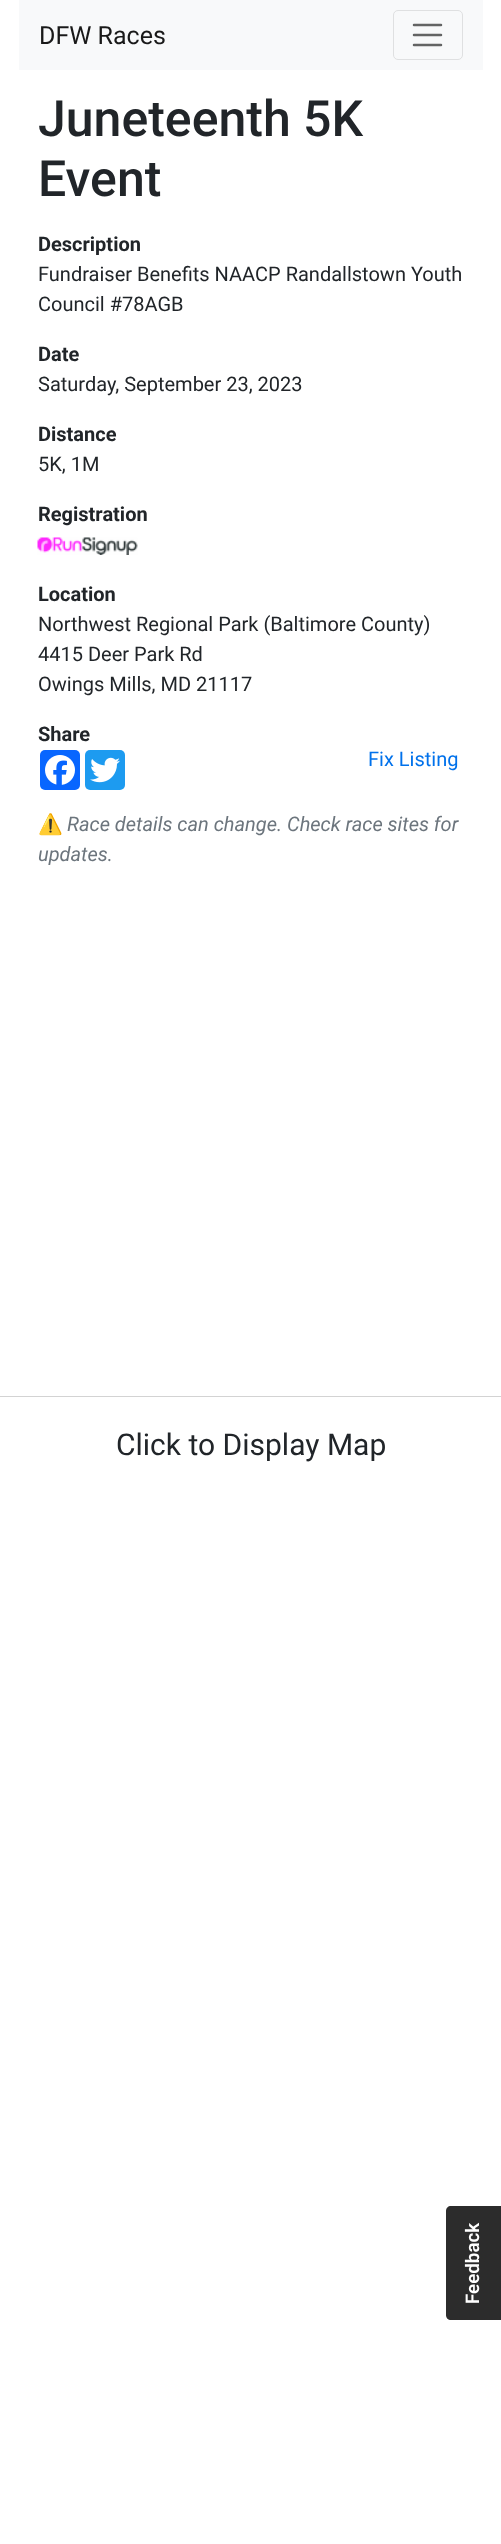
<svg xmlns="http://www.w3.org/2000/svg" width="501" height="2544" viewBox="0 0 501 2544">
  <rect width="100%" height="100%" fill="#ffffff"/>
  <rect x="19" y="0" width="464" height="70" fill="#f8f9fa"/>
  <text x="39" y="44" font-family="Roboto" font-size="25" fill="#191919">DFW Races</text>
  <rect x="393.5" y="10.5" width="69" height="49" rx="4.5" fill="none" stroke="#dfe0e1"/>
  <path d="M414 25H441M414 35H441M414 45H441" fill="none" stroke="#636464" stroke-width="2.5" stroke-linecap="round"/>
  <text x="38" y="136" font-family="Roboto" font-size="50" font-weight="500" fill="#212529">Juneteenth 5K</text>
  <text x="38" y="196" font-family="Roboto" font-size="50" font-weight="500" fill="#212529">Event</text>
  <text x="38" y="251" font-family="Roboto" font-size="20" font-weight="bold" fill="#212529">Description</text>
  <text x="38" y="281" font-family="Roboto" font-size="20" fill="#212529">Fundraiser Benefits NAACP Randallstown Youth</text>
  <text x="38" y="311" font-family="Roboto" font-size="20" fill="#212529">Council #78AGB</text>
  <text x="38" y="361" font-family="Roboto" font-size="20" font-weight="bold" fill="#212529">Date</text>
  <text x="38" y="391" font-family="Roboto" font-size="20" fill="#212529">Saturday, September 23, 2023</text>
  <text x="38" y="441" font-family="Roboto" font-size="20" font-weight="bold" fill="#212529">Distance</text>
  <text x="38" y="471" font-family="Roboto" font-size="20" fill="#212529">5K, 1M</text>
  <text x="38" y="521" font-family="Roboto" font-size="20" font-weight="bold" fill="#212529">Registration</text>
  <image x="37" y="537" width="101" height="18" href="img1.png"/>
  <text x="38" y="601" font-family="Roboto" font-size="20" font-weight="bold" fill="#212529">Location</text>
  <text x="38" y="631" font-family="Roboto" font-size="20" fill="#212529">Northwest Regional Park (Baltimore County)</text>
  <text x="38" y="661" font-family="Roboto" font-size="20" fill="#212529">4415 Deer Park Rd</text>
  <text x="38" y="691" font-family="Roboto" font-size="20" fill="#212529">Owings Mills, MD 21117</text>
  <text x="38" y="741" font-family="Roboto" font-size="20" font-weight="bold" fill="#212529">Share</text>
  <rect x="40" y="750" width="40" height="40" rx="5" fill="#0866ff"/>
  <image x="45" y="755" width="30" height="30" href="img2.png"/>
  <rect x="85" y="750" width="40" height="40" rx="5" fill="#1d9bf0"/>
  <image x="90" y="757" width="30" height="26" href="img3.png"/>
  <text x="368" y="766" font-family="Roboto" font-size="20" fill="#0071eb">Fix Listing</text>
  <text x="38" y="831" font-family="Noto Color Emoji" font-size="20" fill="#6c757d">⚠</text>
  <text x="67" y="831" font-family="Roboto" font-size="20" font-style="italic" fill="#6c757d">Race details can change. Check race sites for</text>
  <text x="38" y="861" font-family="Roboto" font-size="20" font-style="italic" fill="#6c757d">updates.</text>
  <rect x="0" y="1396" width="501" height="1" fill="#d3d3d3"/>
  <text x="116" y="1455" font-family="Roboto" font-size="30" fill="#212529">Click to Display Map</text>
  <path d="M446 2315V2211C446 2208 448 2206 451 2206H501V2320H451C448 2320 446 2318 446 2315Z" fill="#2c2c2c"/>
  <text x="479" y="2304" transform="rotate(-90 479 2304)" font-family="Roboto" font-size="18.75" font-weight="600" fill="#ffffff">Feedback</text>
</svg>
